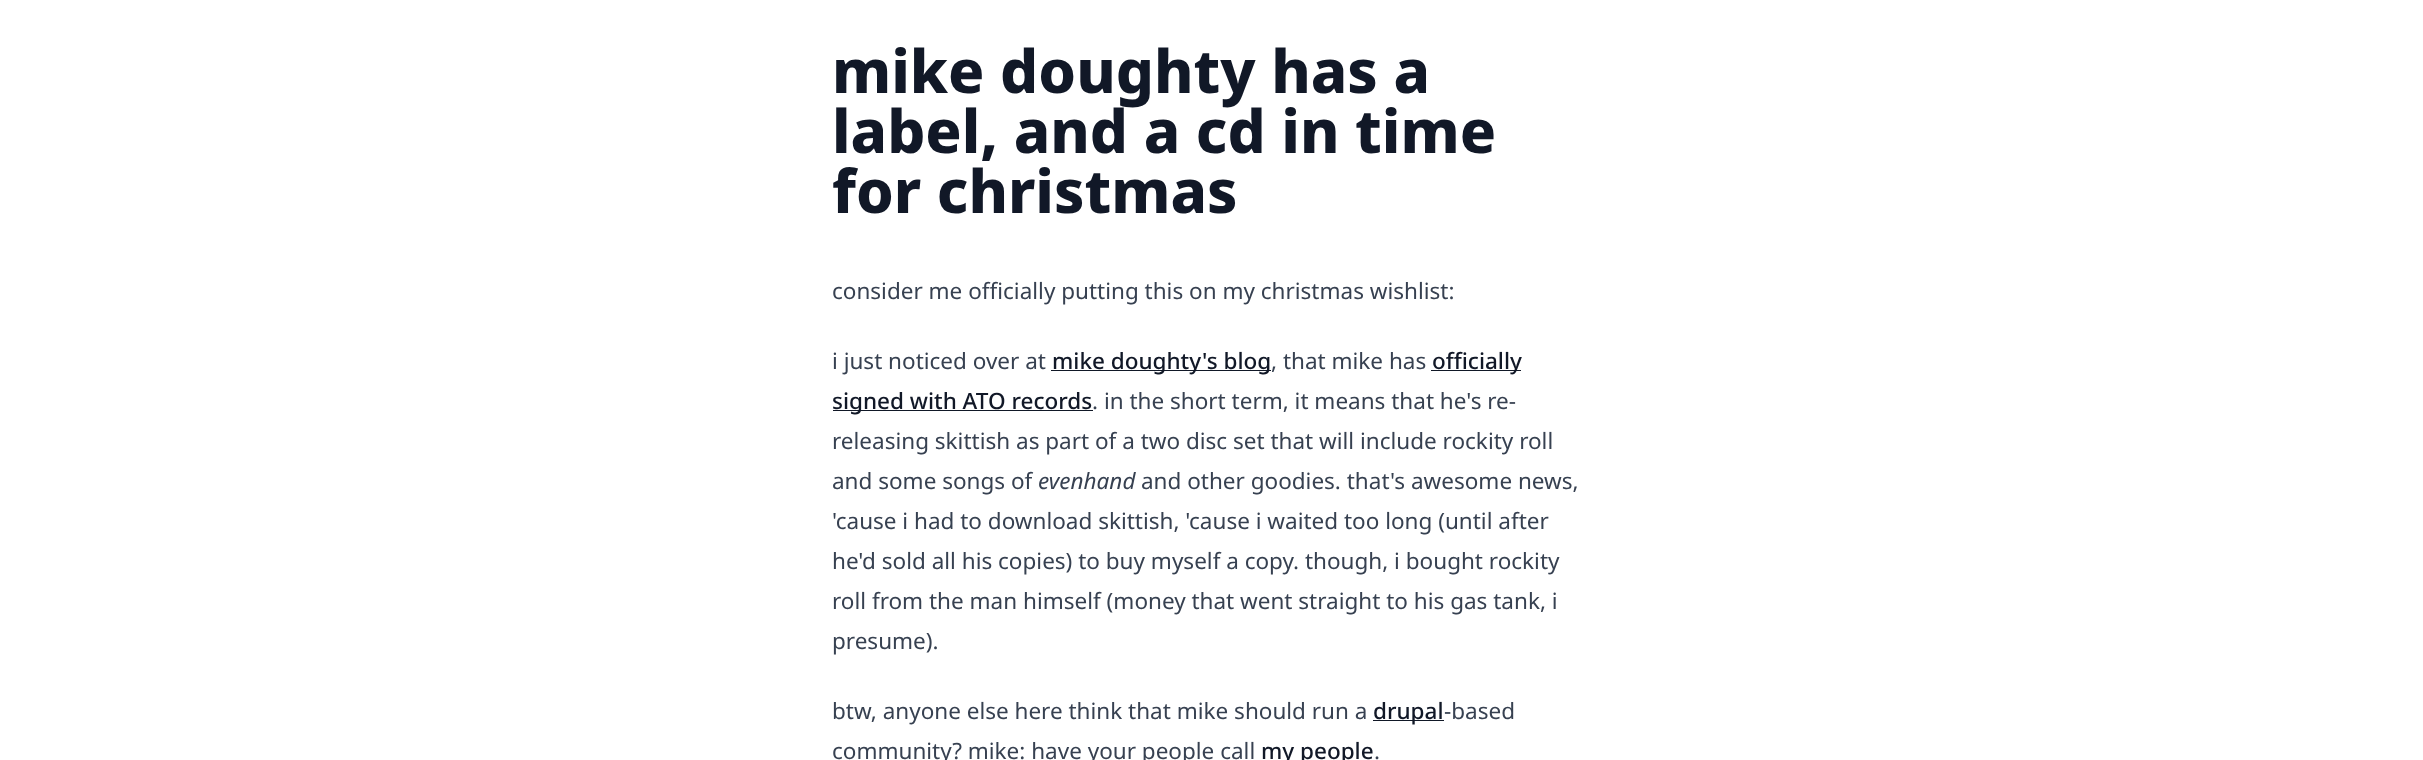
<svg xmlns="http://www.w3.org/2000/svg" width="2423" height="760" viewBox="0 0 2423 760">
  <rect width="100%" height="100%" fill="#ffffff"/>
  <text x="832" y="93" font-family="Noto Sans" font-size="60" font-weight="800" fill="#111827">mike doughty has a</text>
  <text x="832" y="153" font-family="Noto Sans" font-size="60" font-weight="800" fill="#111827">label, and a cd in time</text>
  <text x="832" y="213" font-family="Noto Sans" font-size="60" font-weight="800" fill="#111827">for christmas</text>
  <text x="832" y="299" font-family="Noto Sans" font-size="22.5" fill="#374151">consider me officially putting this on my christmas wishlist:</text>
  <text x="832" y="369" font-family="Noto Sans" font-size="22.5" fill="#374151">i just noticed over at</text>
  <rect x="1051" y="370" width="220" height="1" fill="#111827"/>
  <text x="1052" y="369" font-family="Noto Sans" font-size="22.5" font-weight="500" fill="#111827">mike doughty's blog</text>
  <text x="1271" y="369" font-family="Noto Sans" font-size="22.5" fill="#374151">, that mike has</text>
  <rect x="1431" y="370" width="90" height="1" fill="#111827"/>
  <text x="1432" y="369" font-family="Noto Sans" font-size="22.5" font-weight="500" fill="#111827">officially</text>
  <rect x="833" y="410" width="260" height="1" fill="#111827"/>
  <text x="832" y="409" font-family="Noto Sans" font-size="22.5" font-weight="500" fill="#111827">signed with ATO records</text>
  <text x="1092" y="409" font-family="Noto Sans" font-size="22.5" fill="#374151">. in the short term, it means that he's re-</text>
  <text x="832" y="449" font-family="Noto Sans" font-size="22.5" fill="#374151">releasing skittish as part of a two disc set that will include rockity roll</text>
  <text x="832" y="489" font-family="Noto Sans" font-size="22.5" fill="#374151">and some songs of</text>
  <text x="1038" y="489" font-family="Noto Sans" font-size="22.5" font-style="italic" fill="#374151">evenhand</text>
  <text x="1141" y="489" font-family="Noto Sans" font-size="22.5" fill="#374151">and other goodies. that's awesome news,</text>
  <text x="832" y="529" font-family="Noto Sans" font-size="22.5" fill="#374151">'cause i had to download skittish, 'cause i waited too long (until after</text>
  <text x="832" y="569" font-family="Noto Sans" font-size="22.5" fill="#374151">he'd sold all his copies) to buy myself a copy. though, i bought rockity</text>
  <text x="832" y="609" font-family="Noto Sans" font-size="22.5" fill="#374151">roll from the man himself (money that went straight to his gas tank, i</text>
  <text x="832" y="649" font-family="Noto Sans" font-size="22.5" fill="#374151">presume).</text>
  <text x="832" y="719" font-family="Noto Sans" font-size="22.5" fill="#374151">btw, anyone else here think that mike should run a</text>
  <rect x="1373" y="720" width="71" height="1" fill="#111827"/>
  <text x="1373" y="719" font-family="Noto Sans" font-size="22.5" font-weight="500" fill="#111827">drupal</text>
  <text x="1444" y="719" font-family="Noto Sans" font-size="22.5" fill="#374151">-based</text>
  <text x="832" y="759" font-family="Noto Sans" font-size="22.5" fill="#374151">community? mike: have your people call</text>
  <text x="1261" y="759" font-family="Noto Sans" font-size="22.5" font-weight="500" fill="#111827">my people</text>
  <text x="1374" y="759" font-family="Noto Sans" font-size="22.5" fill="#374151">.</text>
</svg>
